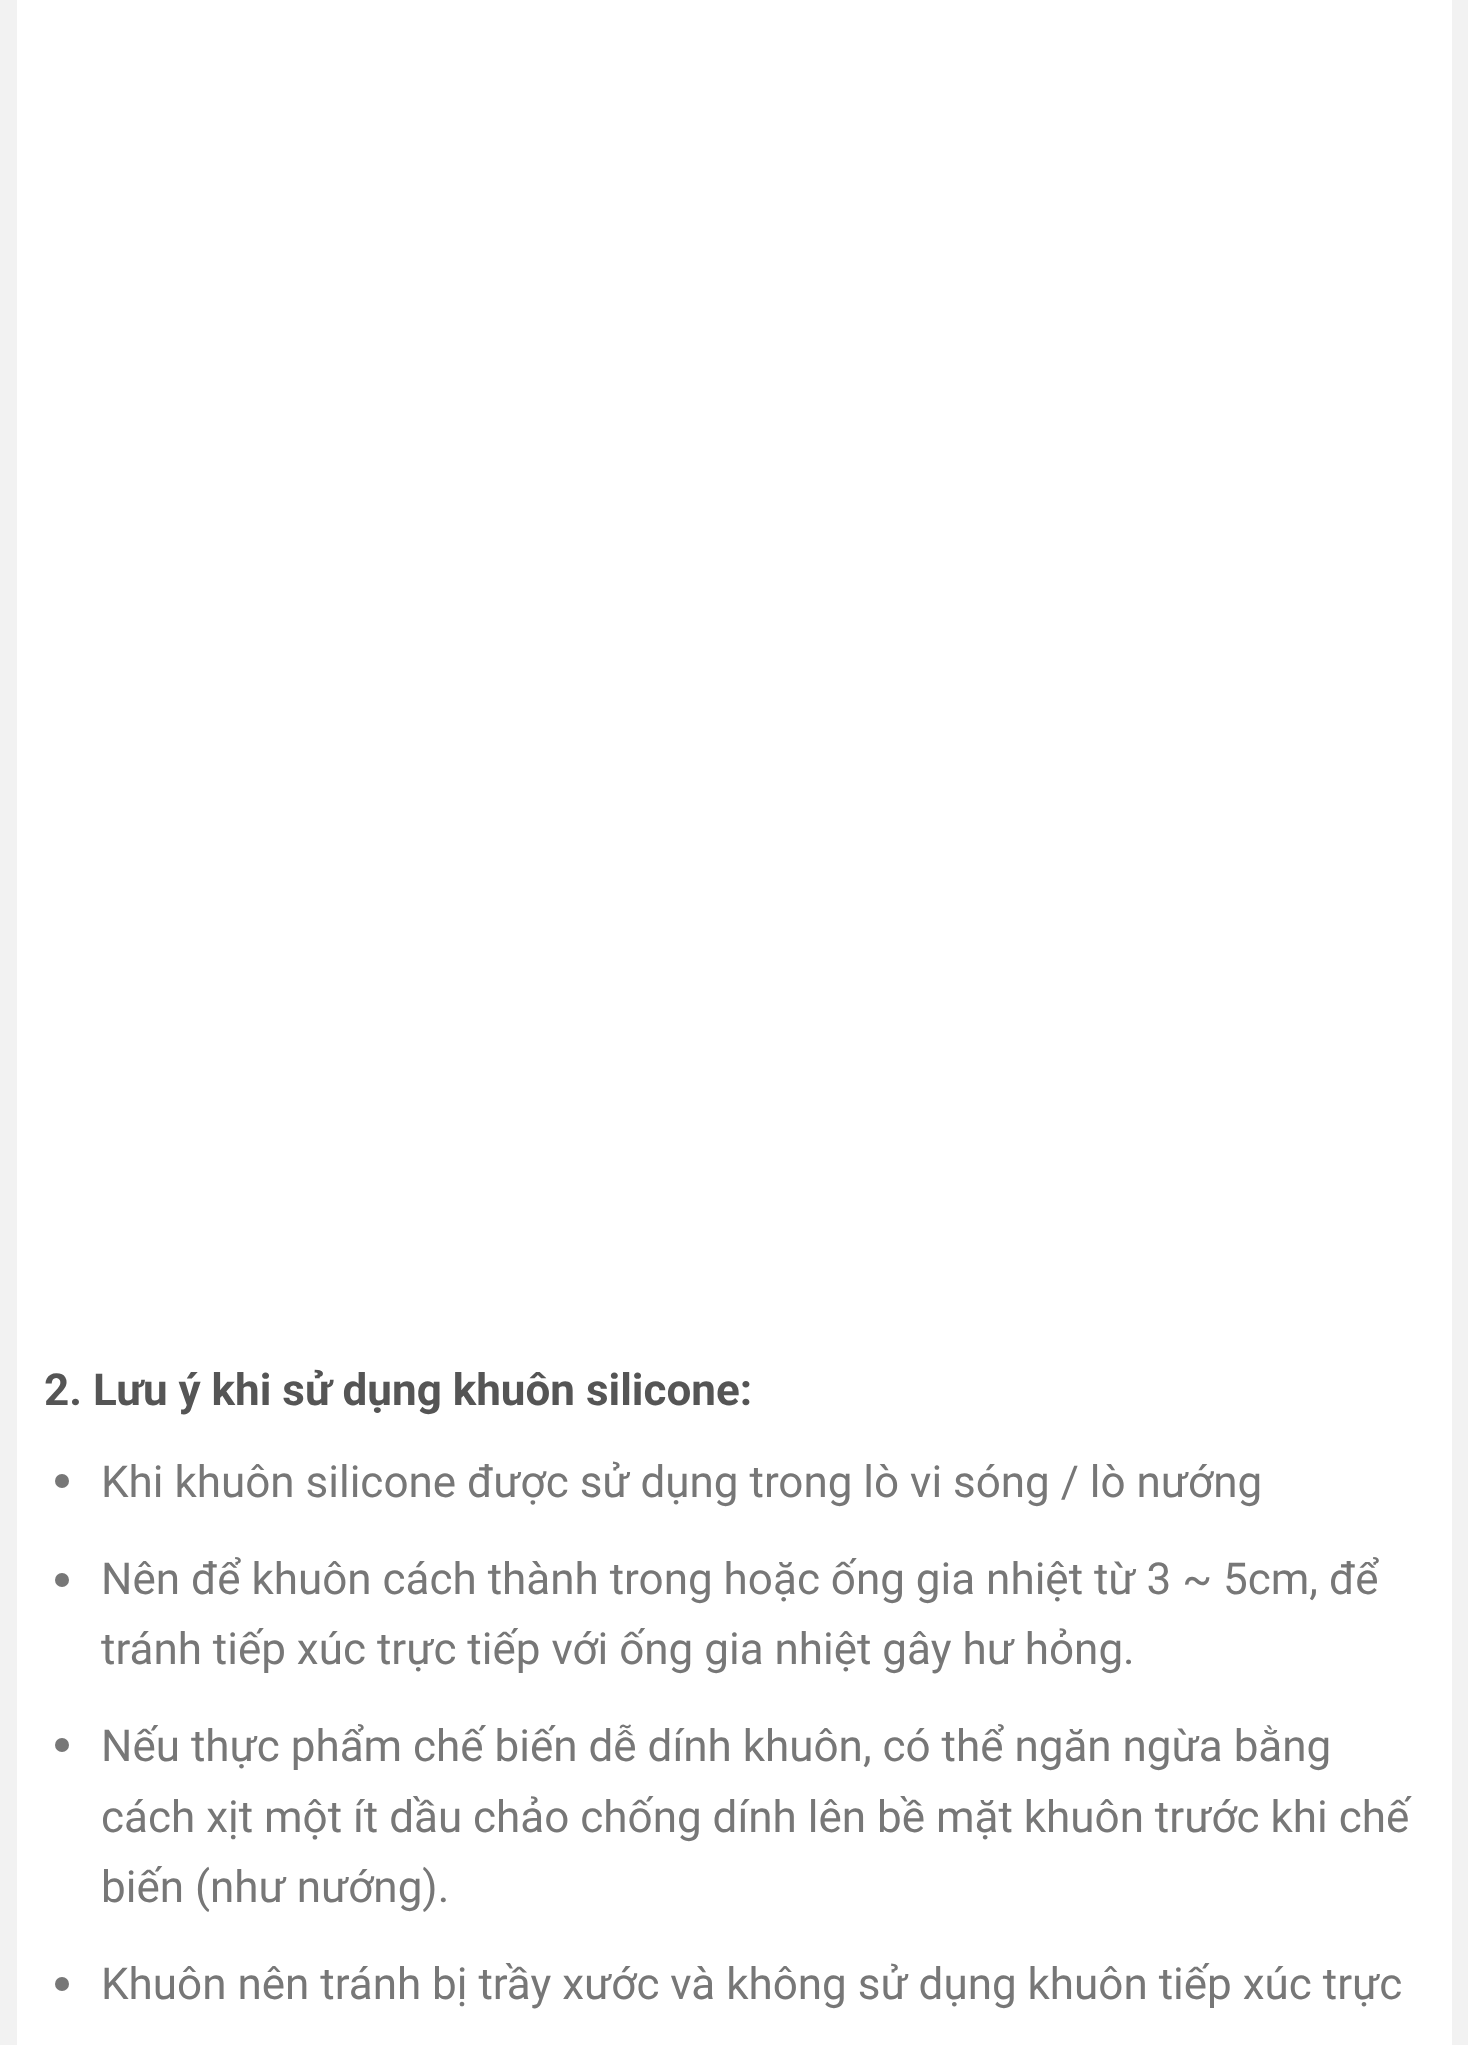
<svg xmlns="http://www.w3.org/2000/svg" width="1468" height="2045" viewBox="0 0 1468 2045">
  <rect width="100%" height="100%" fill="#f2f2f2"/>
  <rect x="17" y="0" width="1435" height="2045" fill="#ffffff"/>
  <text x="44" y="1405" font-family="Roboto" font-size="44" font-weight="bold" fill="#555555">2. Lưu ý khi sử dụng khuôn silicone:</text>
  <circle cx="62" cy="1481" r="7" fill="#777777"/>
  <text x="101" y="1497" font-family="Roboto" font-size="44" fill="#777777">Khi khuôn silicone được sử dụng trong lò vi sóng / lò nướng</text>
  <circle cx="62" cy="1580" r="7" fill="#777777"/>
  <text x="101" y="1594" font-family="Roboto" font-size="44" fill="#777777">Nên để khuôn cách thành trong hoặc ống gia nhiệt từ 3 ~ 5cm, để</text>
  <text x="101" y="1664" font-family="Roboto" font-size="44" fill="#777777">tránh tiếp xúc trực tiếp với ống gia nhiệt gây hư hỏng.</text>
  <circle cx="62" cy="1745" r="7" fill="#777777"/>
  <text x="101" y="1761" font-family="Roboto" font-size="44" fill="#777777">Nếu thực phẩm chế biến dễ dính khuôn, có thể ngăn ngừa bằng</text>
  <text x="101" y="1832" font-family="Roboto" font-size="44" fill="#777777">cách xịt một ít dầu chảo chống dính lên bề mặt khuôn trước khi chế</text>
  <text x="101" y="1902" font-family="Roboto" font-size="44" fill="#777777">biến (như nướng).</text>
  <circle cx="62" cy="1984" r="7" fill="#777777"/>
  <text x="101" y="1999" font-family="Roboto" font-size="44" fill="#777777">Khuôn nên tránh bị trầy xước và không sử dụng khuôn tiếp xúc trực</text>
</svg>
